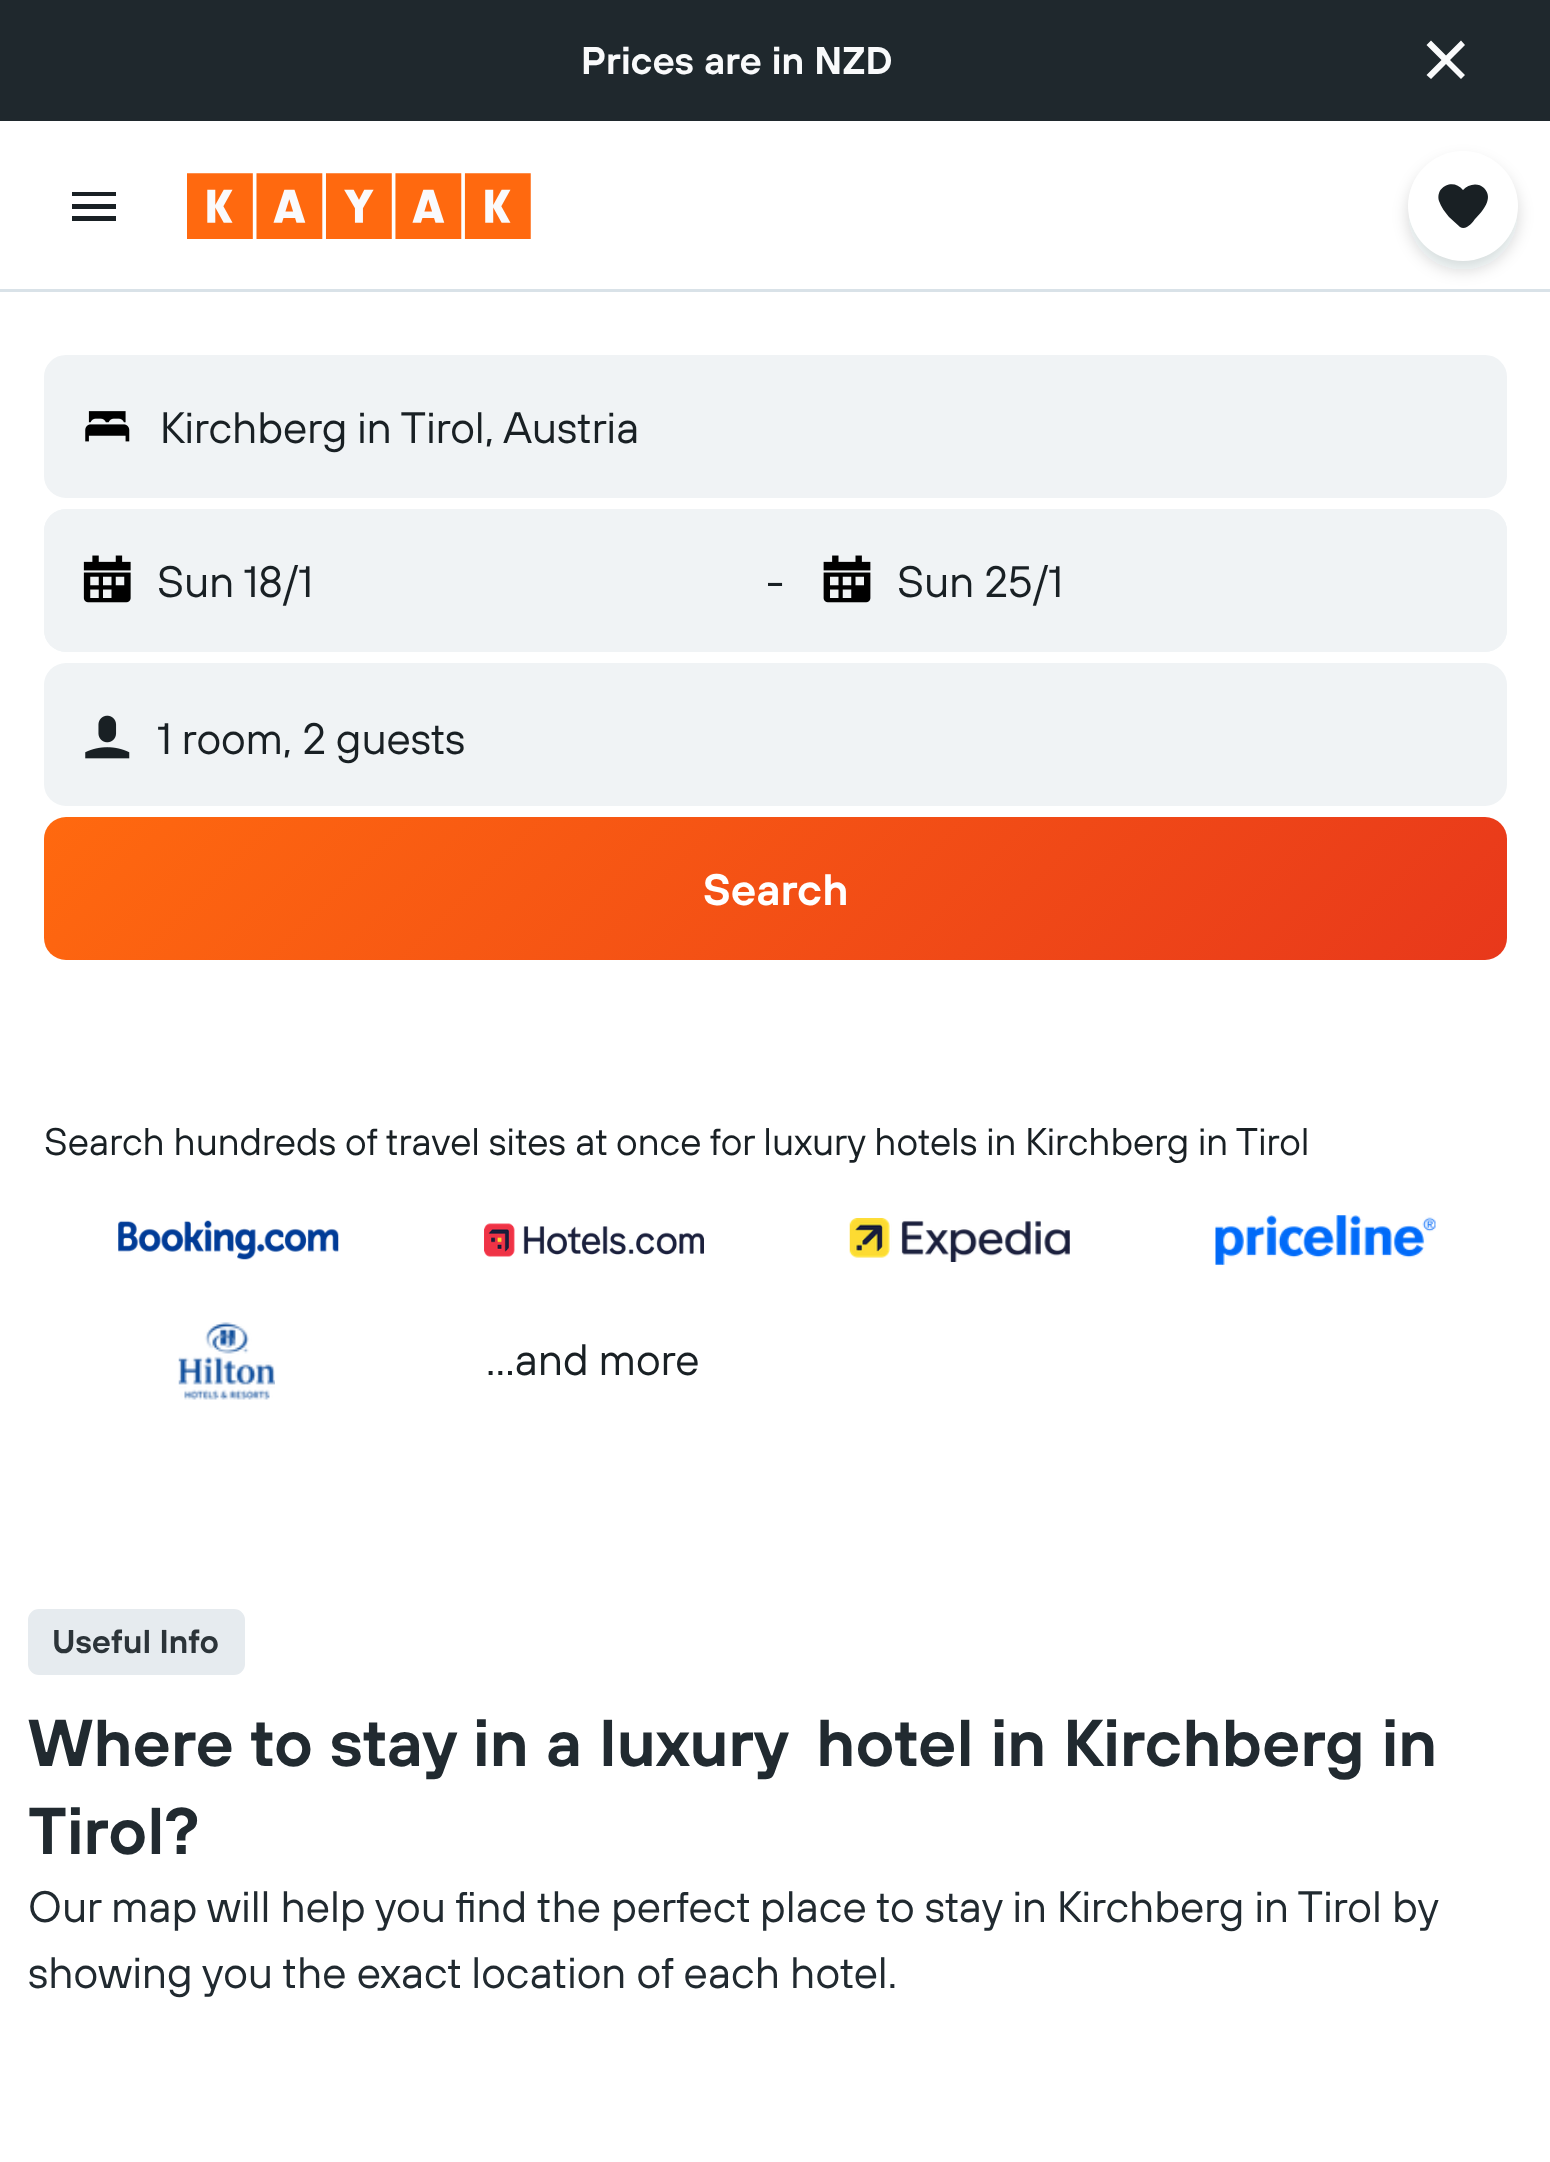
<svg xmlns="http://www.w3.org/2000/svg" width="1550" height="2162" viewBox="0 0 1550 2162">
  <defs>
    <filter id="blur1" x="-50%" y="-200%" width="200%" height="500%"><feGaussianBlur stdDeviation="8"/></filter>
    <linearGradient id="g1" gradientUnits="userSpaceOnUse" x1="374" y1="487" x2="1177" y2="1290"><stop offset="0" stop-color="#ff690f"/><stop offset="1" stop-color="#e8381b"/></linearGradient>
  </defs>
  <rect width="100%" height="100%" fill="#ffffff"/>
  <rect x="0" y="0" width="1550" height="121" fill="#1f282d"/>
  <text x="581" y="74" font-family="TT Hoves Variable" font-size="38.5" font-weight="600" fill="#f9fafb">Prices are in NZD</text>
  <path d="M1465 45L1461 40.5L1446 55.5L1431 40.5L1426.5 45L1441.5 60L1426.5 75L1431 79L1446 64L1461 79L1465 75L1450 60Z" fill="#f9fafb" fill-rule="evenodd"/>
  <rect x="0" y="289" width="1550" height="3" fill="#d9e2e8"/>
  <path d="M72 221H116V216H72ZM72 209H116V204H72ZM72 192V196H116V192Z" fill="#192024"/>
  <image x="187" y="173" width="344" height="66" href="img1.png"/>
  <rect x="1408" y="160" width="110" height="110" rx="55" fill="#192024" fill-opacity="0.16" filter="url(#blur1)"/>
  <circle cx="1463" cy="206" r="55" fill="#ffffff"/>
  <path d="M1484 188C1478 182 1468 184 1463 190C1454 178 1435 186 1439 201C1441 207 1445 212 1449 217L1460 227C1466 231 1473 222 1475 219C1483 211 1494 198 1484 188Z" fill="#192024"/>
  <rect x="45.5" y="356.5" width="1460" height="140" rx="20.5" fill="#f0f3f5" stroke="#f0f3f5" stroke-width="3"/>
  <image x="85" y="411" width="45" height="31" href="img2.png"/>
  <text x="160" y="443" font-family="TT Hoves Variable" font-size="44" fill="#192024">Kirchberg in Tirol, Austria</text>
  <rect x="44" y="509" width="1463" height="143" rx="22" fill="#f0f3f5"/>
  <rect x="44" y="509" width="723" height="143" rx="22" fill="#f0f3f5"/>
  <image x="83" y="555" width="48" height="48" href="img3.png"/>
  <text x="157" y="597" font-family="TT Hoves Variable" font-size="44" fill="#192024">Sun 18/1</text>
  <text x="766" y="597" font-family="TT Hoves Variable" font-size="44" fill="#192024">-</text>
  <rect x="784" y="509" width="723" height="143" rx="22" fill="#f0f3f5"/>
  <image x="823" y="555" width="48" height="48" href="img4.png"/>
  <text x="897" y="597" font-family="TT Hoves Variable" font-size="44" fill="#192024">Sun 25/1</text>
  <rect x="44" y="663" width="1463" height="143" rx="22" fill="#f0f3f5"/>
  <image x="85" y="715" width="45" height="44" href="img5.png"/>
  <text x="157" y="754" font-family="TT Hoves Variable" font-size="44" fill="#192024">1 room, 2 guests</text>
  <rect x="44" y="817" width="1463" height="143" rx="22" fill="url(#g1)"/>
  <text x="703" y="905" font-family="TT Hoves Variable" font-size="44" font-weight="600" fill="#ffffff">Search</text>
  <text x="44" y="1155" font-family="TT Hoves Variable" font-size="38.5" fill="#192024">Search hundreds of travel sites at once for luxury hotels in Kirchberg in Tirol</text>
  <image x="118" y="1220" width="221" height="40" href="img6.png"/>
  <image x="484" y="1223" width="220" height="34" href="img7.png"/>
  <image x="849" y="1218" width="221" height="44" href="img8.png"/>
  <image x="1215" y="1215" width="221" height="50" href="img9.png"/>
  <image x="178" y="1322" width="97" height="78" href="img10.png"/>
  <text x="486" y="1375" font-family="TT Hoves Variable" font-size="44" fill="#192024">...and more</text>
  <rect x="29.5" y="1610.5" width="214" height="63" rx="9.5" fill="#e6ebef" stroke="#e6ebef" stroke-width="3"/>
  <text x="52" y="1653" font-family="TT Hoves Variable" font-size="33" font-weight="600" fill="#2c3439">Useful Info</text>
  <text x="28" y="1766" font-family="TT Hoves Variable" font-size="66" font-weight="600" fill="#212a30">Where to stay in a luxury</text>
  <text x="816" y="1766" font-family="TT Hoves Variable" font-size="66" font-weight="600" fill="#212a30">hotel in Kirchberg in</text>
  <text x="28" y="1854" font-family="TT Hoves Variable" font-size="66" font-weight="600" fill="#212a30">Tirol?</text>
  <text x="28" y="1922" font-family="TT Hoves Variable" font-size="44" fill="#212a30">Our map will help you find the perfect place to stay in Kirchberg in Tirol by</text>
  <text x="28" y="1988" font-family="TT Hoves Variable" font-size="44" fill="#212a30">showing you the exact location of each hotel.</text>
</svg>
